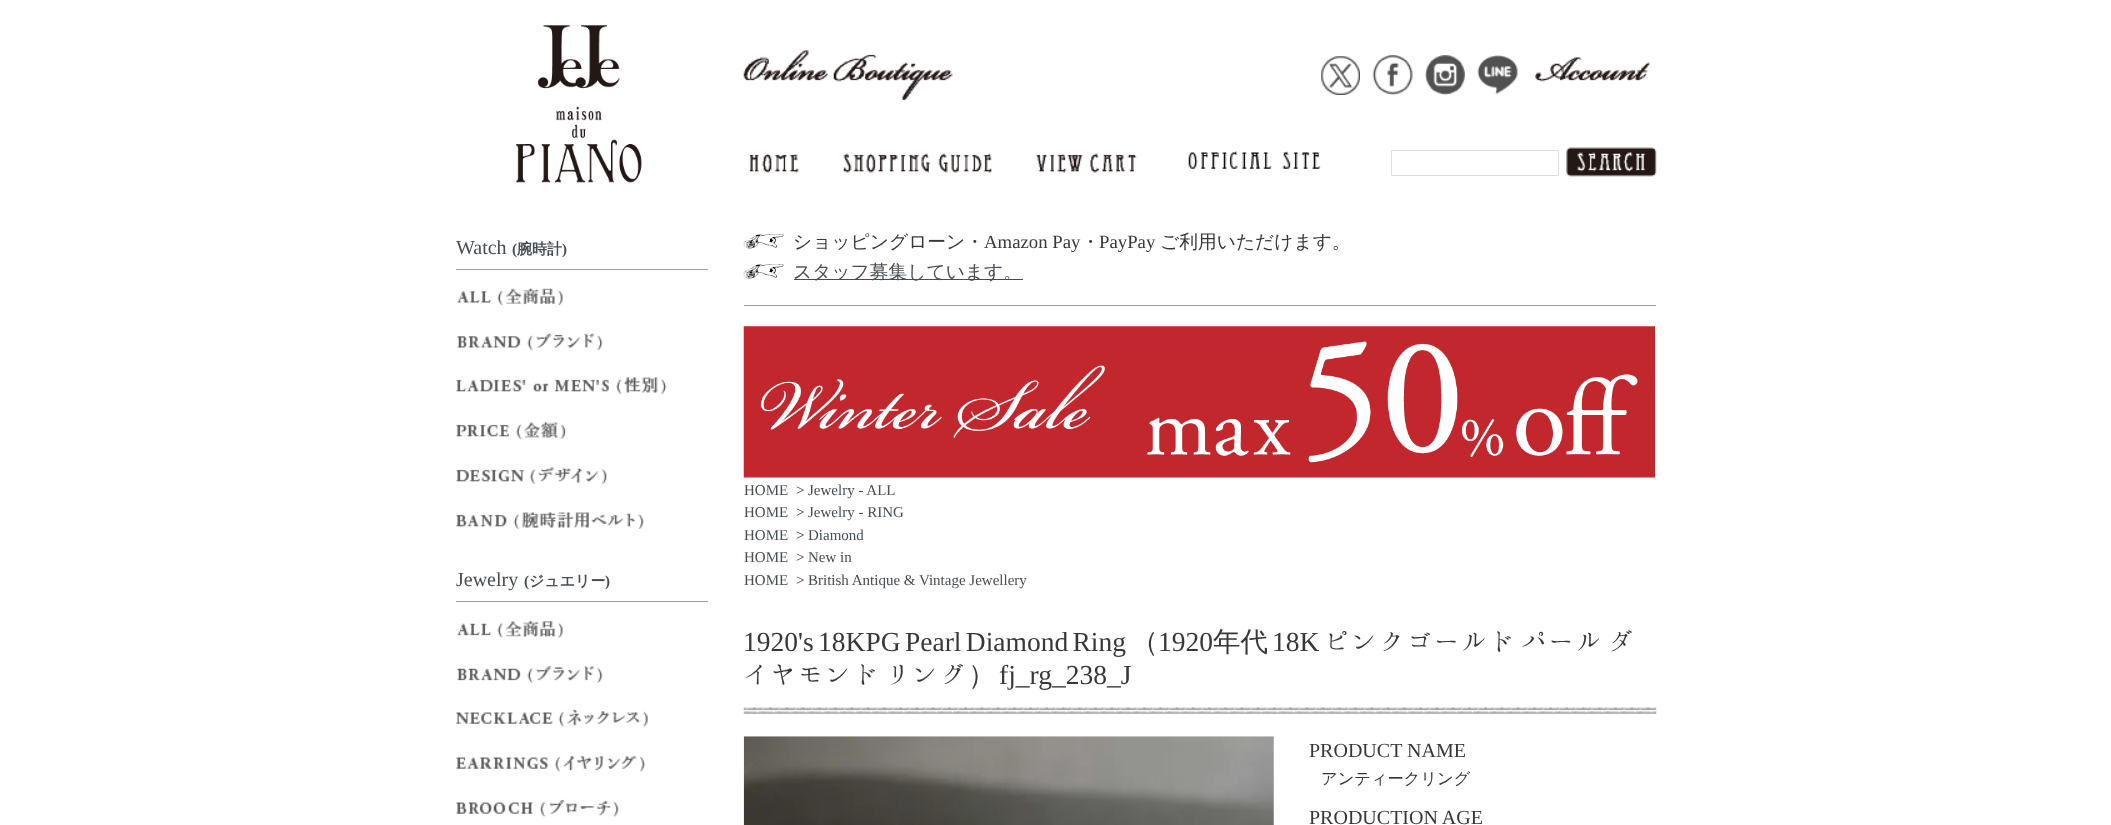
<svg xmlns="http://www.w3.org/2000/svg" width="2111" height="825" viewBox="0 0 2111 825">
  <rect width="100%" height="100%" fill="#ffffff"/>
  <image x="516" y="25" width="126" height="158" href="img1.png"/>
  <image x="749" y="153" width="50" height="20" href="img2.png"/>
  <image x="843" y="153" width="149" height="20" href="img3.png"/>
  <image x="1036" y="153" width="101" height="20" href="img4.png"/>
  <image x="1188" y="151" width="133" height="18" href="img5.png"/>
  <rect x="1391.5" y="150.5" width="167" height="25" rx="0.5" fill="none" stroke="#dddddd"/>
  <image x="1566" y="147" width="91" height="30" href="img6.png"/>
  <image x="743" y="50" width="210" height="50" href="img7.png"/>
  <image x="1321" y="56" width="39" height="39" href="img8.png"/>
  <image x="1372" y="55" width="41" height="40" href="img9.png"/>
  <image x="1425" y="55" width="40" height="40" href="img10.png"/>
  <image x="1477" y="55" width="41" height="39" href="img11.png"/>
  <image x="1535" y="57" width="115" height="25" href="img12.png"/>
  <rect x="456" y="269" width="252" height="1" fill="#9fa0a0"/>
  <text x="456" y="254" font-family="Liberation Serif" font-size="20" fill="#464e54">Watch</text>
  <text x="512" y="254" font-family="Liberation Serif" font-size="15" font-weight="bold" fill="#464e54">(</text>
  <text x="517" y="254" font-family="WenQuanYi Zen Hei" font-size="15" font-weight="bold" fill="#464e54">腕時計</text>
  <text x="562" y="254" font-family="Liberation Serif" font-size="15" font-weight="bold" fill="#464e54">)</text>
  <image x="457" y="287" width="106" height="19" href="img13.png"/>
  <image x="457" y="333" width="146" height="18" href="img14.png"/>
  <image x="456" y="377" width="211" height="17" href="img15.png"/>
  <image x="456" y="421" width="110" height="18" href="img16.png"/>
  <image x="456" y="467" width="151" height="17" href="img17.png"/>
  <image x="456" y="512" width="188" height="17" href="img18.png"/>
  <rect x="456" y="601" width="252" height="1" fill="#9fa0a0"/>
  <text x="456" y="586" font-family="Liberation Serif" font-size="20" fill="#464e54">Jewelry</text>
  <text x="524" y="586" font-family="Liberation Serif" font-size="15" font-weight="bold" fill="#464e54">(</text>
  <text x="529" y="586" font-family="WenQuanYi Zen Hei" font-size="15" font-weight="bold" fill="#464e54">ジュエリー</text>
  <text x="605" y="586" font-family="Liberation Serif" font-size="15" font-weight="bold" fill="#464e54">)</text>
  <image x="457" y="620" width="106" height="18" href="img19.png"/>
  <image x="457" y="666" width="146" height="17" href="img20.png"/>
  <image x="456" y="709" width="192" height="18" href="img21.png"/>
  <image x="456" y="756" width="190" height="16" href="img22.png"/>
  <image x="456" y="799" width="163" height="18" href="img23.png"/>
  <rect x="744" y="305" width="912" height="1" fill="#9fa0a0"/>
  <image x="743" y="234" width="41" height="15" href="img24.png"/>
  <text x="793" y="248" font-family="WenQuanYi Zen Hei" font-size="18.75" font-weight="500" fill="#383838">ショッピングローン・</text>
  <text x="984" y="248" font-family="Liberation Serif" font-size="18.75" fill="#383838">Amazon Pay</text>
  <text x="1081" y="248" font-family="WenQuanYi Zen Hei" font-size="18.75" font-weight="500" fill="#383838">・</text>
  <text x="1099" y="248" font-family="Liberation Serif" font-size="18.75" fill="#383838">PayPay</text>
  <text x="1160" y="248" font-family="WenQuanYi Zen Hei" font-size="18.75" font-weight="500" fill="#383838">ご利用いただけます。</text>
  <image x="743" y="264" width="41" height="15" href="img24.png"/>
  <rect x="794" y="279" width="229" height="1" fill="#464e54"/>
  <text x="793" y="278" font-family="WenQuanYi Zen Hei" font-size="18.75" font-weight="500" fill="#464e54">スタッフ募集しています。</text>
  <image x="743" y="326" width="912" height="152" href="img25.png"/>
  <text x="744" y="495" font-family="Liberation Serif" font-size="15" fill="#464e54">HOME</text>
  <text x="796" y="495" font-family="Liberation Serif" font-size="15" fill="#383838">&gt;</text>
  <text x="808" y="495" font-family="Liberation Serif" font-size="15" fill="#464e54">Jewelry - ALL</text>
  <text x="744" y="517" font-family="Liberation Serif" font-size="15" fill="#464e54">HOME</text>
  <text x="796" y="517" font-family="Liberation Serif" font-size="15" fill="#383838">&gt;</text>
  <text x="808" y="517" font-family="Liberation Serif" font-size="15" fill="#464e54">Jewelry - RING</text>
  <text x="744" y="540" font-family="Liberation Serif" font-size="15" fill="#464e54">HOME</text>
  <text x="796" y="540" font-family="Liberation Serif" font-size="15" fill="#383838">&gt;</text>
  <text x="808" y="540" font-family="Liberation Serif" font-size="15" fill="#464e54">Diamond</text>
  <text x="744" y="562" font-family="Liberation Serif" font-size="15" fill="#464e54">HOME</text>
  <text x="796" y="562" font-family="Liberation Serif" font-size="15" fill="#383838">&gt;</text>
  <text x="808" y="562" font-family="Liberation Serif" font-size="15" fill="#464e54">New in</text>
  <text x="744" y="585" font-family="Liberation Serif" font-size="15" fill="#464e54">HOME</text>
  <text x="796" y="585" font-family="Liberation Serif" font-size="15" fill="#383838">&gt;</text>
  <text x="808" y="585" font-family="Liberation Serif" font-size="15" fill="#464e54">British Antique &amp; Vintage Jewellery</text>
  <image x="743" y="707" width="914" height="7" href="img26.png"/>
  <text x="743" y="651" word-spacing="-2.5" font-family="Liberation Serif" font-size="27.5" fill="#383838">1920's 18KPG Pearl Diamond Ring</text>
  <text x="1131" y="651" font-family="WenQuanYi Zen Hei" font-size="27.5" font-weight="500" fill="#383838">（</text>
  <text x="1158" y="651" font-family="Liberation Serif" font-size="27.5" fill="#383838">1920</text>
  <text x="1213" y="651" font-family="WenQuanYi Zen Hei" font-size="27.5" font-weight="500" fill="#383838">年代</text>
  <text x="1272" y="651" font-family="Liberation Serif" font-size="27.5" fill="#383838">18K</text>
  <text x="1324" y="651" font-family="Hannari" font-size="27.5" fill="#383838">ピンクゴールド</text>
  <text x="1521" y="651" font-family="Hannari" font-size="27.5" fill="#383838">パール</text>
  <text x="1608" y="651" font-family="Hannari" font-size="27.5" fill="#383838">ダ</text>
  <text x="743" y="684" font-family="Hannari" font-size="27.5" fill="#383838">イヤモンド</text>
  <text x="885" y="684" font-family="Hannari" font-size="27.5" fill="#383838">リング</text>
  <text x="968" y="684" font-family="WenQuanYi Zen Hei" font-size="27.5" font-weight="500" fill="#383838">）</text>
  <text x="999" y="684" font-family="Liberation Serif" font-size="27.5" fill="#383838">fj_rg_238_J</text>
  <image x="743" y="736" width="531" height="89" href="img27.png"/>
  <text x="1309" y="757" font-family="Liberation Serif" font-size="20" fill="#383838">PRODUCT NAME</text>
  <text x="1321" y="784" font-family="WenQuanYi Zen Hei" font-size="16.25" font-weight="500" fill="#383838">アンティークリング</text>
  <text x="1309" y="824" font-family="Liberation Serif" font-size="20" fill="#383838">PRODUCTION AGE</text>
</svg>
